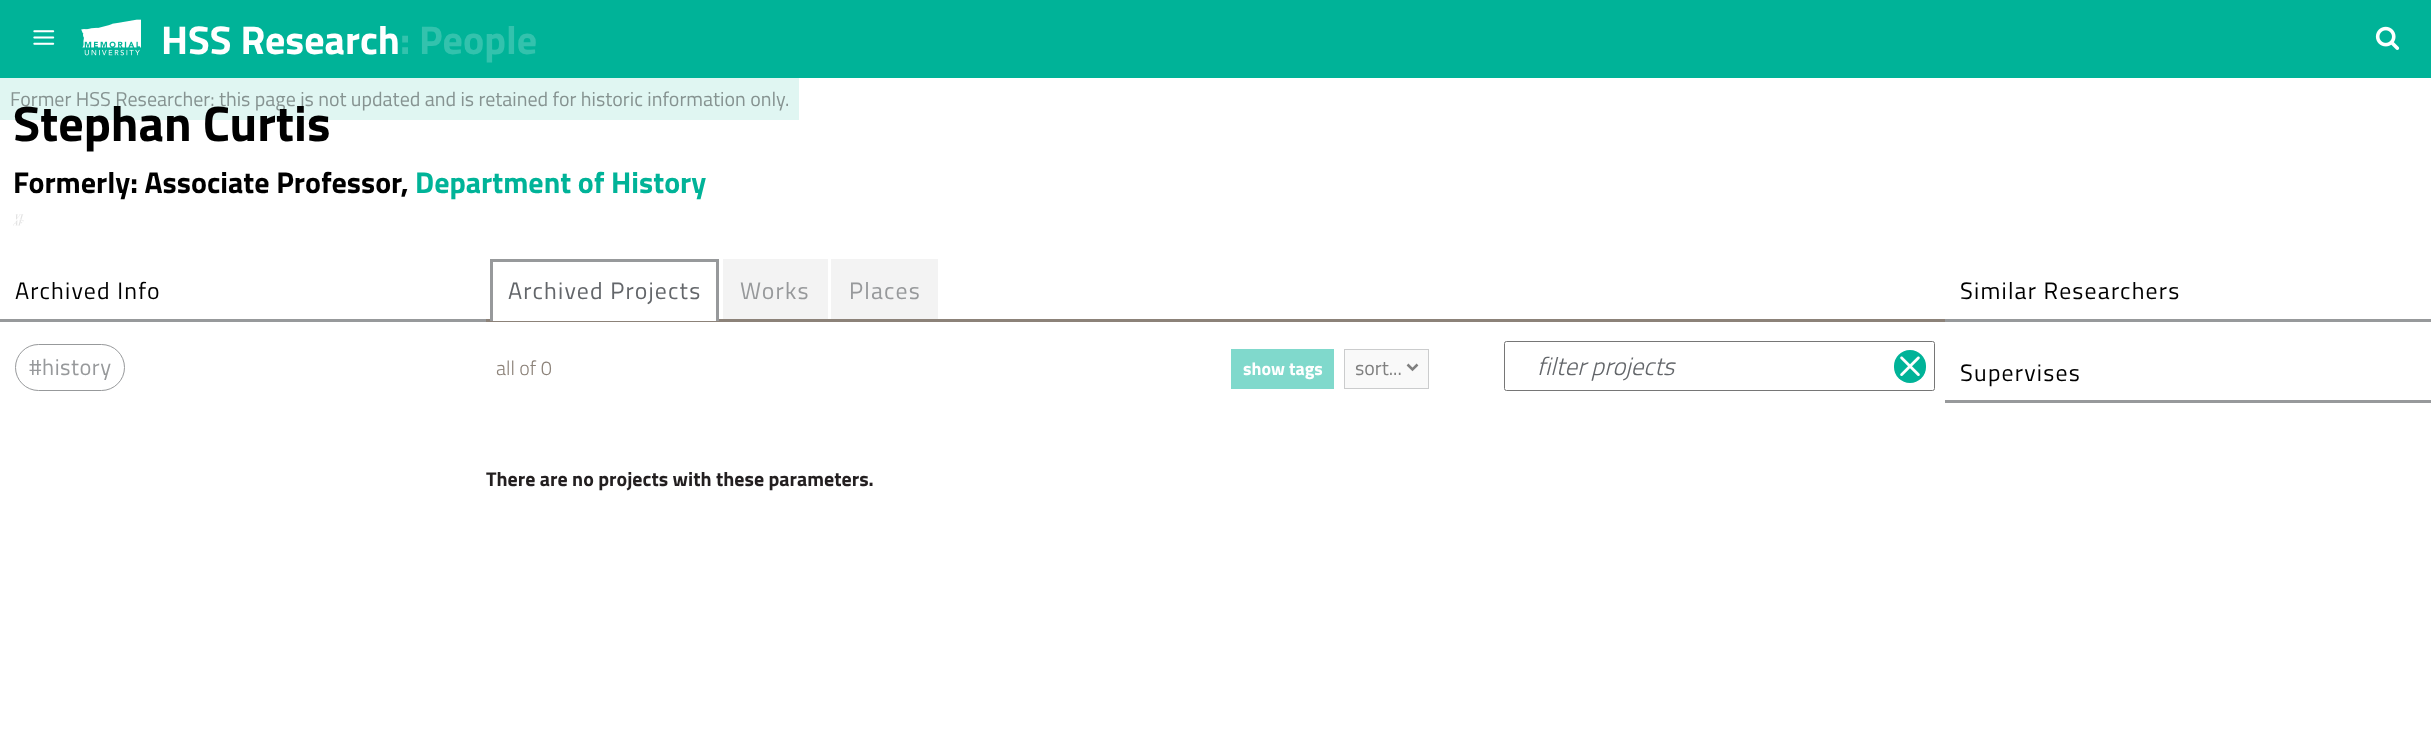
<svg xmlns="http://www.w3.org/2000/svg" width="2431" height="748" viewBox="0 0 2431 748">
  <rect width="100%" height="100%" fill="#ffffff"/>
  <rect x="0" y="0" width="2431" height="78" fill="#00b398"/>
  <image x="33" y="30" width="22" height="15" href="img1.png"/>
  <image x="81" y="19" width="60" height="37" href="img2.png"/>
  <text x="161" y="54" font-family="Titillium Web" font-size="40" font-weight="bold" fill="#ffffff">HSS Research</text>
  <text x="400" y="54" font-family="Titillium Web" font-size="40" font-weight="bold" fill="#33c2ad">: People</text>
  <image x="2375" y="26" width="25" height="24" href="img3.png"/>
  <rect x="0" y="78" width="799" height="42" fill="#00b398" fill-opacity="0.12"/>
  <text x="10" y="106" font-family="Titillium Web" font-size="20" fill="#869391">Former HSS Researcher: this page is not updated and is retained for historic information only.</text>
  <text x="13" y="141" font-family="Titillium Web" font-size="50" font-weight="bold" fill="#000000">Stephan Curtis</text>
  <text x="13" y="193" font-family="Titillium Web" font-size="30" font-weight="bold" fill="#000000">Formerly: Associate Professor,</text>
  <text x="415" y="193" font-family="Titillium Web" font-size="30" font-weight="bold" fill="#00b398">Department of History</text>
  <image x="13" y="214" width="11" height="12" href="img4.png"/>
  <rect x="0" y="319" width="486" height="3" fill="#97999b"/>
  <text x="15" y="299" font-family="Titillium Web" font-size="23.75" letter-spacing="1.2" fill="#000000">Archived Info</text>
  <rect x="15.5" y="344.5" width="109" height="46" rx="23" fill="none" stroke="#97999b"/>
  <text x="29" y="375" font-family="Titillium Web" font-size="22.5" letter-spacing="0.5" fill="#97999b">#history</text>
  <rect x="486" y="319" width="1459" height="3" fill="#8c8279"/>
  <rect x="493" y="319" width="223" height="2" fill="#ffffff"/>
  <rect x="490" y="259" width="229" height="3" fill="#97999b"/>
  <rect x="716" y="259" width="3" height="62" fill="#97999b"/>
  <rect x="490" y="259" width="3" height="62" fill="#97999b"/>
  <text x="508" y="299" font-family="Titillium Web" font-size="23.75" letter-spacing="1.2" fill="#63666a">Archived Projects</text>
  <rect x="726" y="262" width="99" height="57" fill="#f3f3f3"/>
  <rect x="723" y="259" width="105" height="3" fill="#f3f3f3"/>
  <rect x="825" y="259" width="3" height="60" fill="#f3f3f3"/>
  <rect x="723" y="259" width="3" height="60" fill="#f3f3f3"/>
  <text x="740" y="299" font-family="Titillium Web" font-size="23.75" letter-spacing="1.2" fill="#97999b">Works</text>
  <rect x="834" y="262" width="101" height="57" fill="#f3f3f3"/>
  <rect x="831" y="259" width="107" height="3" fill="#f3f3f3"/>
  <rect x="935" y="259" width="3" height="60" fill="#f3f3f3"/>
  <rect x="831" y="259" width="3" height="60" fill="#f3f3f3"/>
  <text x="849" y="299" font-family="Titillium Web" font-size="23.75" letter-spacing="1.2" fill="#97999b">Places</text>
  <text x="496" y="375" font-family="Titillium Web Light" font-size="20" font-weight="300" fill="#8c8279">all of 0</text>
  <rect x="1231" y="349" width="103" height="40" fill="#80d9cc"/>
  <text x="1243" y="375" font-family="Titillium Web" font-size="18" font-weight="bold" fill="#ffffff">show tags</text>
  <rect x="1344.5" y="349.5" width="84" height="39" fill="#f9f9f9" stroke="#cbcccd"/>
  <path d="M1407.5 364.5L1412.5 369.5L1417.5 364.5" fill="none" stroke="#808080" stroke-width="2.5"/>
  <text x="1355" y="375" font-family="Titillium Web" font-size="20" fill="#808080">sort...</text>
  <rect x="1504.5" y="341.5" width="430" height="49" rx="2" fill="none" stroke="#767676"/>
  <text x="1537" y="375" font-family="Titillium Web Light" font-size="25" font-weight="300" font-style="italic" fill="#63666a">filter projects</text>
  <rect x="1894" y="350" width="32" height="33" rx="16" fill="#00b398"/>
  <image x="1900" y="356" width="20" height="20" href="img5.png"/>
  <text x="486" y="486" font-family="Titillium Web" font-size="20" font-weight="bold" fill="#231f20">There are no projects with these parameters.</text>
  <rect x="1945" y="319" width="486" height="3" fill="#97999b"/>
  <text x="1960" y="299" font-family="Titillium Web" font-size="23.75" letter-spacing="1.2" fill="#000000">Similar Researchers</text>
  <rect x="1945" y="400" width="486" height="3" fill="#97999b"/>
  <text x="1960" y="381" font-family="Titillium Web" font-size="23.75" letter-spacing="1.2" fill="#000000">Supervises</text>
</svg>
